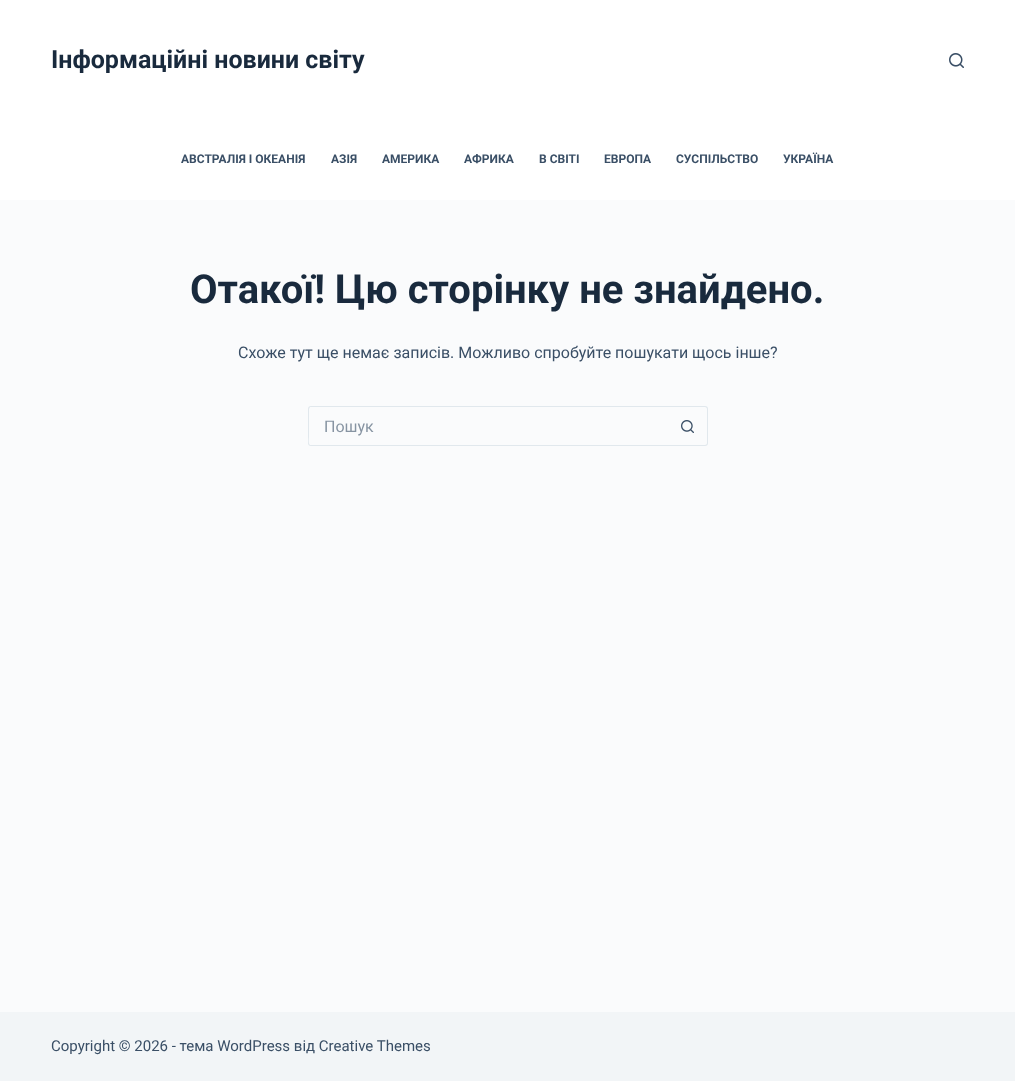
<svg xmlns="http://www.w3.org/2000/svg" width="1015" height="1081" viewBox="0 0 1015 1081">
  <rect width="100%" height="100%" fill="#fafbfc"/>
  <rect x="0" y="0" width="1015" height="200" fill="#ffffff"/>
  <text x="51" y="68" font-family="Roboto" font-size="25" font-weight="bold" fill="#192a3d">Інформаційні новини світу</text>
  <image x="949" y="53" width="15" height="15" href="img1.png"/>
  <text x="181" y="163" font-family="Roboto" font-size="12" font-weight="bold" fill="#3a4f66">АВСТРАЛІЯ І ОКЕАНІЯ</text>
  <text x="331" y="163" font-family="Roboto" font-size="12" font-weight="bold" fill="#3a4f66">АЗІЯ</text>
  <text x="382" y="163" font-family="Roboto" font-size="12" font-weight="bold" fill="#3a4f66">АМЕРИКА</text>
  <text x="464" y="163" font-family="Roboto" font-size="12" font-weight="bold" fill="#3a4f66">АФРИКА</text>
  <text x="539" y="163" font-family="Roboto" font-size="12" font-weight="bold" fill="#3a4f66">В СВІТІ</text>
  <text x="604" y="163" font-family="Roboto" font-size="12" font-weight="bold" fill="#3a4f66">ЕВРОПА</text>
  <text x="676" y="163" font-family="Roboto" font-size="12" font-weight="bold" fill="#3a4f66">СУСПІЛЬСТВО</text>
  <text x="783" y="163" font-family="Roboto" font-size="12" font-weight="bold" fill="#3a4f66">УКРАЇНА</text>
  <text x="190" y="303" font-family="Roboto" font-size="40" font-weight="bold" fill="#192a3d">Отакої! Цю сторінку не знайдено.</text>
  <text x="238" y="358" font-family="Roboto" font-size="16" fill="#3a4f66">Схоже тут ще немає записів. Можливо спробуйте пошукати щось інше?</text>
  <path d="M311 406H668V446H311C309 446 308 445 308 443V409C308 407 309 406 311 406ZM311 407H668V445H310C308 443 309 438 309 437V409L310 407Z" fill="#e1e8ed" fill-rule="evenodd"/>
  <text x="324" y="432" font-family="Roboto" font-size="16" fill="#8794a2">Пошук</text>
  <path d="M668 406H705C707 406 708 407 708 409V443C708 445 707 446 705 446H668ZM668 407H705C706 407 707 408 707 409V443C707 444 706 445 705 445H668Z" fill="#e1e8ed" fill-rule="evenodd"/>
  <image x="681" y="420" width="13" height="13" href="img2.png"/>
  <rect x="0" y="1012" width="1015" height="69" fill="#f2f5f7"/>
  <text x="51" y="1051" font-family="Roboto" font-size="15" fill="#3a4f66">Copyright © 2026 - тема WordPress від Creative Themes</text>
</svg>
